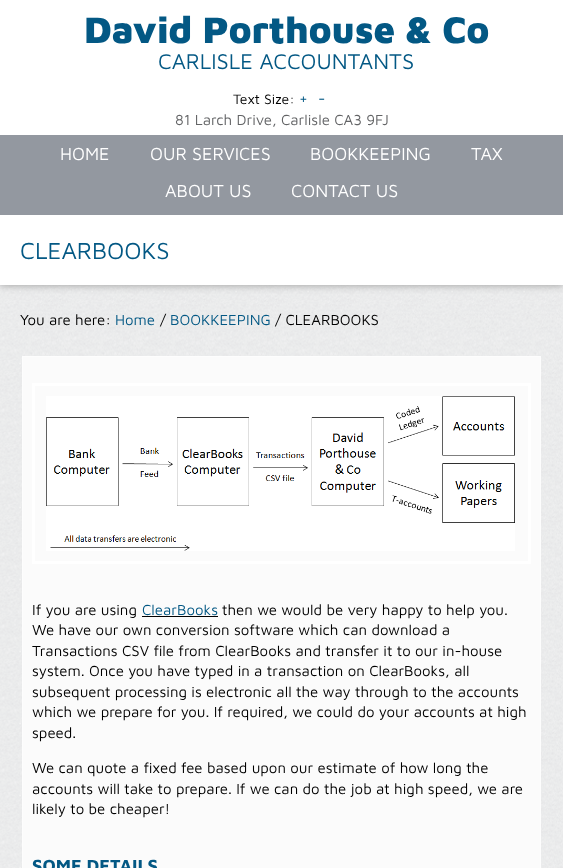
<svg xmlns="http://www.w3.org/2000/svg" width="563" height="868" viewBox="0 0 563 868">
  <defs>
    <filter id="blur1" x="-50%" y="-200%" width="200%" height="500%"><feGaussianBlur stdDeviation="4"/></filter>
  </defs>
  <rect width="100%" height="100%" fill="#ffffff"/>
  <image x="0" y="285" width="563" height="583" href="img1.png"/>
  <text x="84" y="43" font-family="Maven Pro" font-size="38" font-weight="900" fill="#035884">David Porthouse &amp; Co</text>
  <text x="158" y="69" font-family="Maven Pro" font-size="22" fill="#035884">CARLISLE ACCOUNTANTS</text>
  <text x="233" y="104" font-family="Maven Pro" font-size="14" fill="#000000">Text Size:</text>
  <text x="299" y="104" font-family="Maven Pro" font-size="16" fill="#035884">+</text>
  <text x="318" y="104" font-family="Maven Pro" font-size="16" fill="#035884">-</text>
  <text x="175" y="125" font-family="Maven Pro" font-size="15" fill="#636466">81 Larch Drive, Carlisle CA3 9FJ</text>
  <rect x="0" y="215" width="563" height="70" fill="#999999" filter="url(#blur1)"/>
  <rect x="0" y="135" width="563" height="80" fill="#9398a0"/>
  <text x="60" y="160" font-family="Maven Pro" font-size="18" fill="#ffffff">HOME</text>
  <text x="150" y="160" font-family="Maven Pro" font-size="18" fill="#ffffff">OUR SERVICES</text>
  <text x="310" y="160" font-family="Maven Pro" font-size="18" fill="#ffffff">BOOKKEEPING</text>
  <text x="471" y="160" font-family="Maven Pro" font-size="18" fill="#ffffff">TAX</text>
  <text x="165" y="197" font-family="Maven Pro" font-size="18" fill="#ffffff">ABOUT US</text>
  <text x="291" y="197" font-family="Maven Pro" font-size="18" fill="#ffffff">CONTACT US</text>
  <rect x="0" y="215" width="563" height="70" fill="#ffffff"/>
  <text x="20" y="259" font-family="Maven Pro" font-size="24" fill="#035884">CLEARBOOKS</text>
  <text x="20" y="325" font-family="Maven Pro" font-size="15" fill="#000000">You are here:</text>
  <text x="115" y="325" font-family="Maven Pro" font-size="15" fill="#035884">Home</text>
  <text x="160" y="325" font-family="Maven Pro" font-size="15" fill="#000000">/</text>
  <text x="170" y="325" font-family="Maven Pro" font-size="15" fill="#035884">BOOKKEEPING</text>
  <text x="275" y="325" font-family="Maven Pro" font-size="15" fill="#000000">/ CLEARBOOKS</text>
  <rect x="22.5" y="356.5" width="518" height="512" fill="#fbfbfb" stroke="#fdfdfd"/>
  <rect x="33.5" y="384.5" width="496" height="178" fill="none" stroke="#ffffff" stroke-width="3"/>
  <image x="46" y="396" width="469" height="155" href="img2.png"/>
  <text x="32" y="615" font-family="Maven Pro" font-size="15" fill="#000000">If you are using</text>
  <text x="142" y="615" font-family="Maven Pro" font-size="15" fill="#035884">ClearBooks</text>
  <rect x="142" y="616" width="76" height="1" fill="#000000"/>
  <text x="222" y="615" font-family="Maven Pro" font-size="15" fill="#000000">then we would be very happy to help you.</text>
  <text x="32" y="635" font-family="Maven Pro" font-size="15" fill="#000000">We have our own conversion software which can download a</text>
  <text x="32" y="656" font-family="Maven Pro" font-size="15" fill="#000000">Transactions CSV file from ClearBooks and transfer it to our in-house</text>
  <text x="32" y="676" font-family="Maven Pro" font-size="15" fill="#000000">system. Once you have typed in a transaction on ClearBooks, all</text>
  <text x="32" y="697" font-family="Maven Pro" font-size="15" fill="#000000">subsequent processing is electronic all the way through to the accounts</text>
  <text x="32" y="717" font-family="Maven Pro" font-size="15" fill="#000000">which we prepare for you. If required, we could do your accounts at high</text>
  <text x="32" y="738" font-family="Maven Pro" font-size="15" fill="#000000">speed.</text>
  <text x="32" y="773" font-family="Maven Pro" font-size="15" fill="#000000">We can quote a fixed fee based upon our estimate of how long the</text>
  <text x="32" y="794" font-family="Maven Pro" font-size="15" fill="#000000">accounts will take to prepare. If we can do the job at high speed, we are</text>
  <text x="32" y="814" font-family="Maven Pro" font-size="15" fill="#000000">likely to be cheaper!</text>
  <text x="32" y="872" font-family="Maven Pro" font-size="18" font-weight="bold" fill="#035884">SOME DETAILS</text>
</svg>
